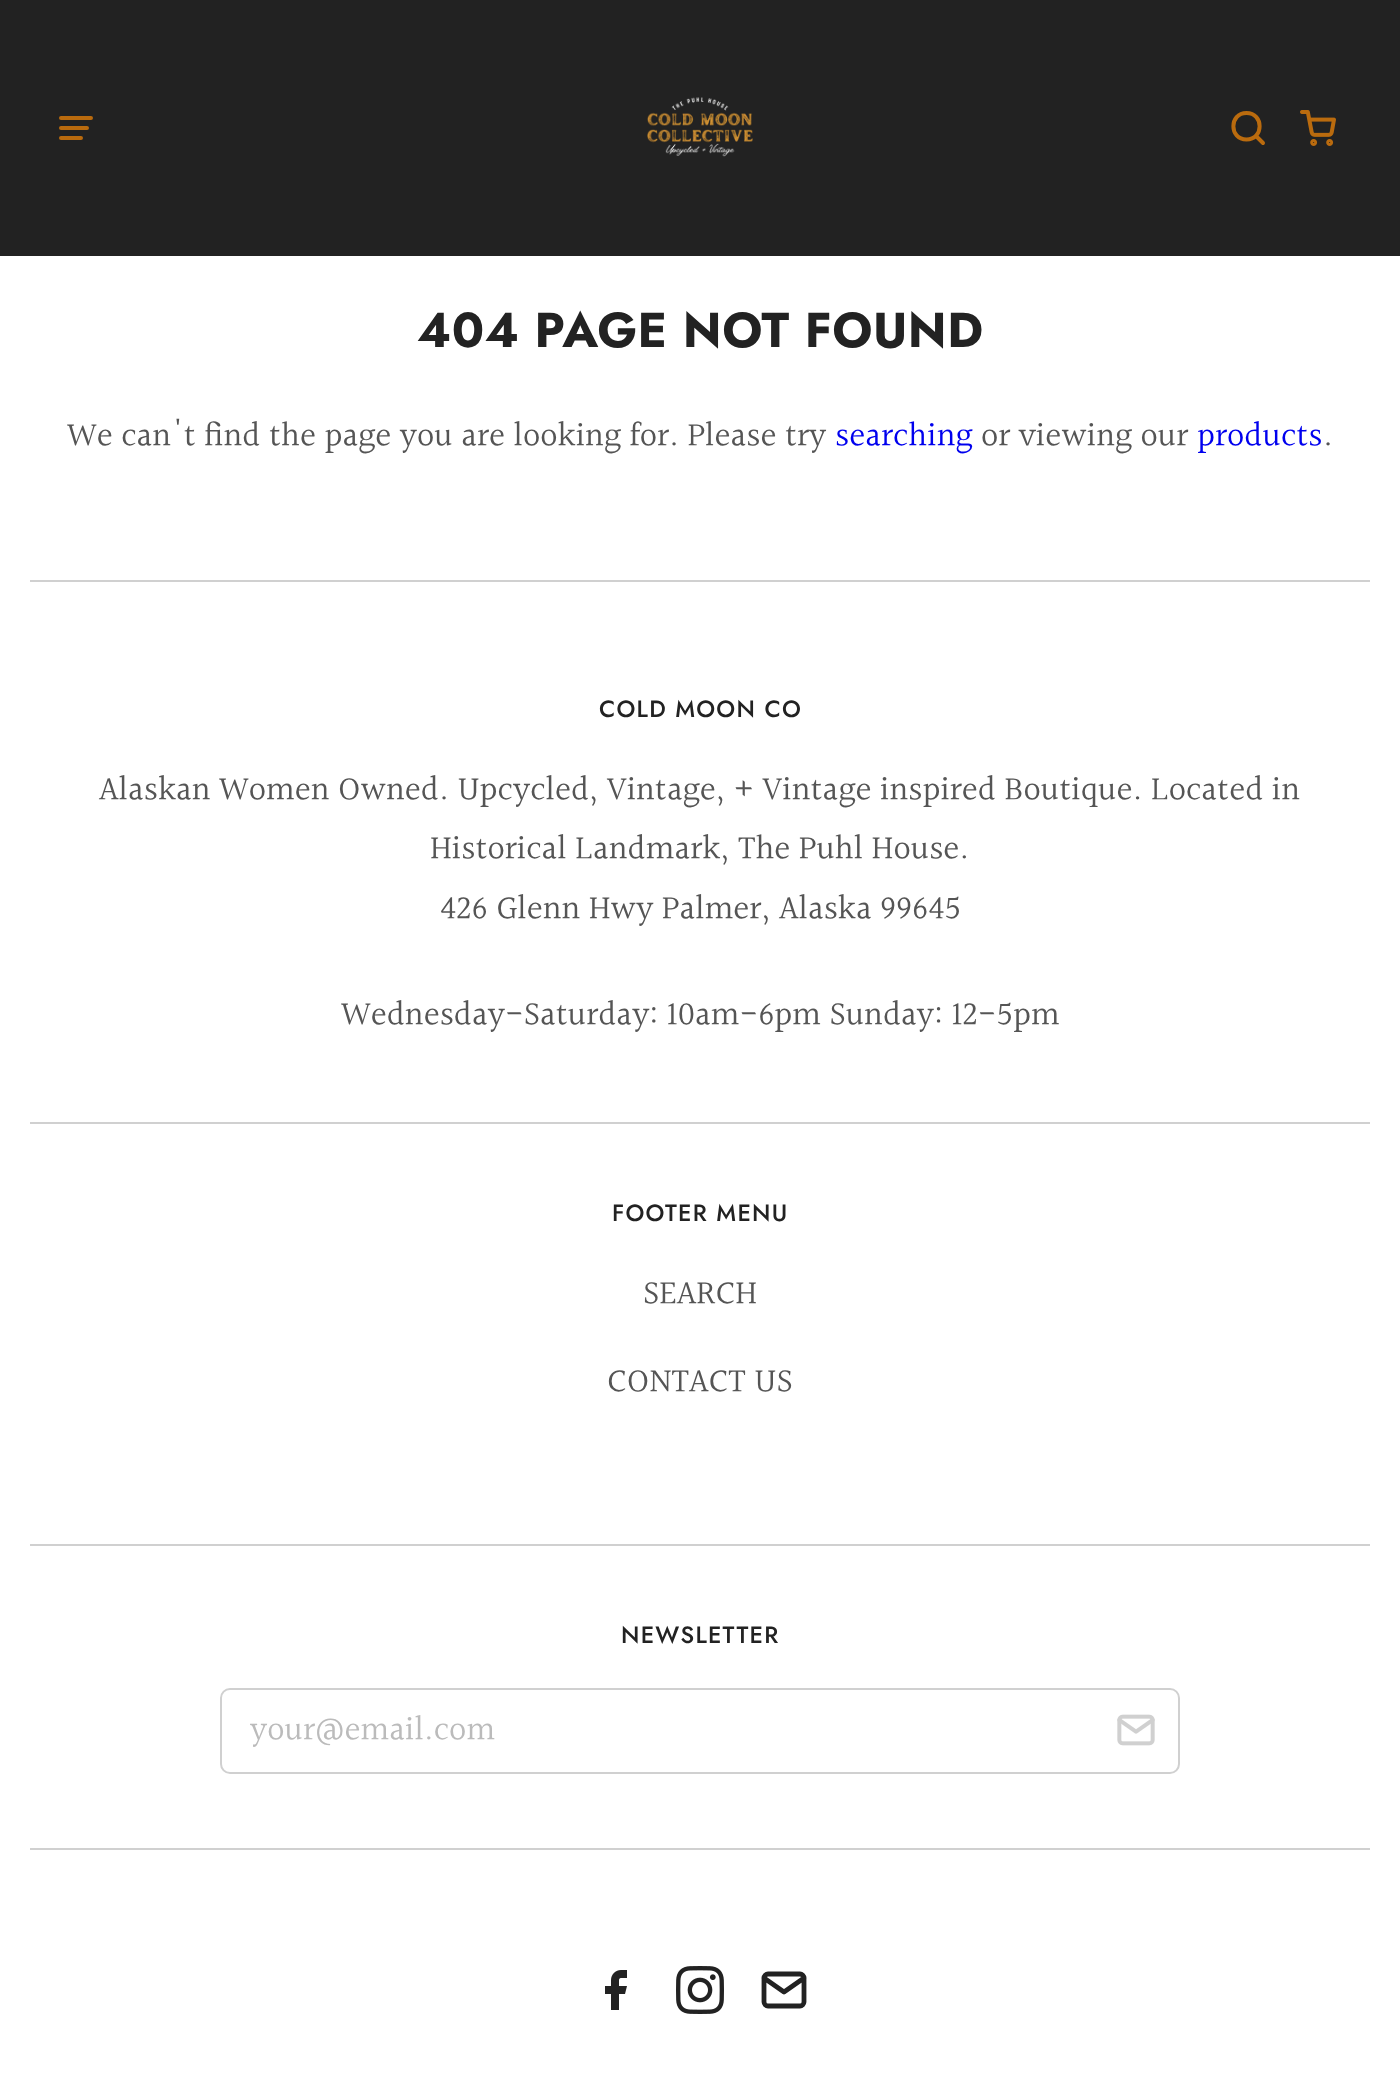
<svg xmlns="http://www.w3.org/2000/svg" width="1400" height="2093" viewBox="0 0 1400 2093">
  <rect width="100%" height="100%" fill="#ffffff"/>
  <rect x="0" y="0" width="1400" height="256" fill="#222222"/>
  <path d="M61 118H91M61 128H87M61 138H81" fill="none" stroke="#ba6b0e" stroke-width="4" stroke-linecap="round" stroke-linejoin="round"/>
  <image x="647" y="97" width="106" height="60" href="img1.png"/>
  <path d="M1246.5 113C1229 113 1229 139.5 1246.5 139.5C1264 139.5 1264 113 1246.5 113ZM1263 143L1256 136Z" fill="none" stroke="#ba6b0e" stroke-width="4" stroke-linecap="round" stroke-linejoin="round"/>
  <image x="1300" y="110" width="36" height="36" href="img2.png"/>
  <text x="417" y="347" font-family="Jost" font-size="49" font-weight="bold" letter-spacing="0.5" fill="#222222">404 PAGE NOT FOUND</text>
  <text x="67" y="447" font-family="Halant" font-size="34" fill="#555555">We can't find the page you are looking for. Please try</text>
  <text x="835" y="447" font-family="Halant" font-size="34" fill="#0000ee">searching</text>
  <text x="981" y="447" font-family="Halant" font-size="34" fill="#555555">or viewing our</text>
  <text x="1197" y="447" font-family="Halant" font-size="34" fill="#0000ee">products</text>
  <text x="1323" y="447" font-family="Halant" font-size="34" fill="#555555">.</text>
  <rect x="30" y="580" width="1340" height="2" fill="#d0d0d0"/>
  <text x="599" y="717" font-family="Jost" font-size="23.5" font-weight="500" letter-spacing="1.25" fill="#222222">COLD MOON CO</text>
  <text x="99" y="801" font-family="Halant" font-size="34" fill="#555555">Alaskan Women Owned. Upcycled, Vintage, + Vintage inspired Boutique. Located in</text>
  <text x="430" y="860" font-family="Halant" font-size="34" fill="#555555">Historical Landmark, The Puhl House.</text>
  <text x="440" y="920" font-family="Halant" font-size="34" fill="#555555">426 Glenn Hwy Palmer, Alaska 99645</text>
  <text x="341" y="1026" font-family="Halant" font-size="34" fill="#555555">Wednesday-Saturday: 10am-6pm Sunday: 12-5pm</text>
  <rect x="30" y="1122" width="1340" height="2" fill="#d0d0d0"/>
  <text x="612" y="1221" font-family="Jost" font-size="23.5" font-weight="500" letter-spacing="1.25" fill="#222222">FOOTER MENU</text>
  <text x="643" y="1305" font-family="Halant" font-size="34" fill="#555555">SEARCH</text>
  <text x="607" y="1393" font-family="Halant" font-size="34" fill="#555555">CONTACT US</text>
  <rect x="30" y="1544" width="1340" height="2" fill="#d0d0d0"/>
  <text x="621" y="1643" font-family="Jost" font-size="23.5" font-weight="500" letter-spacing="1.25" fill="#222222">NEWSLETTER</text>
  <rect x="221" y="1689" width="958" height="84" rx="9" fill="none" stroke="#d0d0d0" stroke-width="2"/>
  <text x="250" y="1741" font-family="Halant" font-size="34" fill="#bbbbbb">your@email.com</text>
  <image x="1117" y="1714" width="38" height="32" href="img3.png"/>
  <rect x="30" y="1848" width="1340" height="2" fill="#d0d0d0"/>
  <image x="605" y="1970" width="22" height="40" href="img4.png"/>
  <image x="676" y="1966" width="48" height="48" href="img5.png"/>
  <path d="M768 1974H800C802 1974 804 1976 804 1978V2002C804 2004 802 2006 800 2006H768C766 2006 764 2004 764 2002V1978C764 1976 766 1974 768 1974ZM804 1978L784 1992L764 1978" fill="none" stroke="#222222" stroke-width="4.8" stroke-linecap="round" stroke-linejoin="round"/>
</svg>
